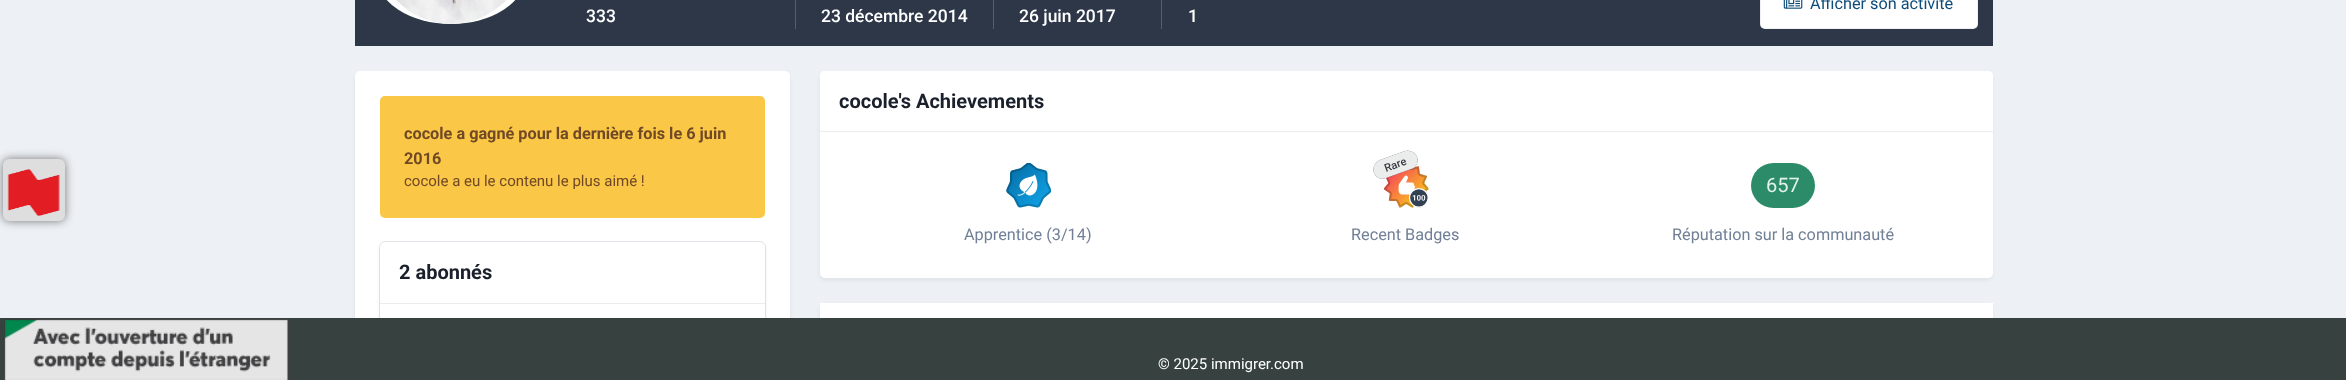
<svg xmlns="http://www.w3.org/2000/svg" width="2346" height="380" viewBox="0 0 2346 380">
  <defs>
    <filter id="blur1" x="-50%" y="-200%" width="200%" height="500%"><feGaussianBlur stdDeviation="5"/></filter>
    <filter id="blur2" x="-50%" y="-200%" width="200%" height="500%"><feGaussianBlur stdDeviation="2.5"/></filter>
  </defs>
  <rect width="100%" height="100%" fill="#edf0f4"/>
  <rect x="3" y="159" width="62" height="62" rx="6" fill="#000000" fill-opacity="0.5" filter="url(#blur1)"/>
  <rect x="3" y="159" width="62" height="62" rx="6" fill="#dedede"/>
  <image x="7" y="169" width="53" height="47" href="img1.png"/>
  <rect x="355" y="0" width="1638" height="46" fill="#2d3748"/>
  <rect x="376" y="-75" width="150" height="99" rx="75" fill="#ffffff"/>
  <image x="396" y="0" width="110" height="24" href="img2.png"/>
  <rect x="1760" y="-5" width="218" height="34" rx="5" fill="#ffffff"/>
  <rect x="1760.5" y="-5.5" width="217" height="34" rx="4.5" fill="none" stroke="#0e4c79" stroke-opacity="0.07"/>
  <image x="1783" y="0" width="20" height="9" href="img3.png"/>
  <text x="1810" y="9" font-family="Roboto" font-size="16.25" fill="#0e4c79">Afficher son activité</text>
  <rect x="795" y="0" width="1" height="29" fill="#575f6d"/>
  <text x="586" y="22" font-family="Roboto" font-size="17.5" font-weight="500" fill="#ffffff">333</text>
  <rect x="993" y="0" width="1" height="29" fill="#575f6d"/>
  <text x="821" y="22" font-family="Roboto" font-size="17.5" font-weight="500" fill="#ffffff">23 décembre 2014</text>
  <rect x="1161" y="0" width="1" height="29" fill="#575f6d"/>
  <text x="1019" y="22" font-family="Roboto" font-size="17.5" font-weight="500" fill="#ffffff">26 juin 2017</text>
  <text x="1188" y="22" font-family="Roboto" font-size="17.5" font-weight="500" fill="#ffffff">1</text>
  <rect x="356" y="75" width="433" height="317" rx="4" fill="#2d3748" fill-opacity="0.1" filter="url(#blur2)"/>
  <rect x="355" y="71" width="435" height="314" rx="5" fill="#ffffff"/>
  <rect x="380" y="96" width="385" height="122" rx="5" fill="#fac746"/>
  <text x="404" y="139" font-family="Roboto" font-size="16.25" font-weight="bold" fill="#704926">cocole a gagné pour la dernière fois le 6 juin</text>
  <text x="404" y="164" font-family="Roboto" font-size="16.25" font-weight="bold" fill="#704926">2016</text>
  <text x="404" y="186" font-family="Roboto" font-size="15" fill="#704926">cocole a eu le contenu le plus aimé !</text>
  <rect x="381" y="246" width="383" height="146" rx="4" fill="#2d3748" fill-opacity="0.1" filter="url(#blur2)"/>
  <rect x="379.5" y="241.5" width="386" height="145" rx="5.5" fill="none" stroke="#718096" stroke-opacity="0.2"/>
  <rect x="380" y="243" width="385" height="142" rx="5" fill="#ffffff"/>
  <rect x="380" y="303" width="385" height="1" fill="#eaecef"/>
  <text x="399" y="279" font-family="Roboto" font-size="20" font-weight="bold" fill="#1a202c">2 abonnés</text>
  <rect x="821" y="75" width="1170" height="204" rx="4" fill="#2d3748" fill-opacity="0.1" filter="url(#blur2)"/>
  <rect x="820" y="71" width="1173" height="207" rx="5" fill="#ffffff"/>
  <path d="M825 71H1988C1991 71 1993 73 1993 76V133H820V76C820 73 822 71 825 71Z" fill="#ffffff"/>
  <rect x="820" y="131" width="1173" height="1" fill="#eaecef"/>
  <text x="839" y="108" font-family="Roboto" font-size="20" font-weight="bold" fill="#1a202c">cocole's Achievements</text>
  <image x="1006" y="163" width="45" height="45" href="img4.png"/>
  <text x="964" y="240" font-family="Roboto" font-size="16.25" fill="#718096">Apprentice (3/14)</text>
  <image x="1384" y="164" width="45" height="44" href="img5.png"/>
  <path d="M1380 160L1405 151C1410 150 1415 152 1417 157C1419 162 1416 168 1411 169L1386 178C1382 180 1376 178 1374 173C1372 168 1375 162 1380 160Z" fill="#353c41"/>
  <path d="M1380 160L1405 151C1410 150 1415 152 1417 157C1419 162 1416 168 1411 169L1386 178C1382 180 1376 178 1374 173C1372 168 1375 162 1380 160Z" fill="#ffffff" fill-opacity="0.9"/>
  <text x="1386" y="172" transform="rotate(-20 1386 172)" font-family="Roboto" font-size="11" font-weight="500" fill="#353c41">Rare</text>
  <text x="1351" y="240" font-family="Roboto" font-size="16.25" fill="#718096">Recent Badges</text>
  <rect x="1751" y="163" width="64" height="45" rx="22.5" fill="#2c8c69"/>
  <text x="1766" y="192" font-family="Roboto" font-size="20" fill="#e3f3ec">657</text>
  <text x="1672" y="240" font-family="Roboto" font-size="16.25" fill="#718096">Réputation sur la communauté</text>
  <rect x="821" y="306" width="1170" height="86" rx="4" fill="#2d3748" fill-opacity="0.1" filter="url(#blur2)"/>
  <rect x="820" y="303" width="1173" height="15" fill="#ffffff"/>
  <rect x="0" y="318" width="2346" height="62" fill="#374140"/>
  <image x="4" y="319" width="285" height="61" href="img6.png"/>
  <text x="1158" y="369" font-family="Roboto" font-size="15" fill="#ffffff">© 2025 immigrer.com</text>
</svg>
